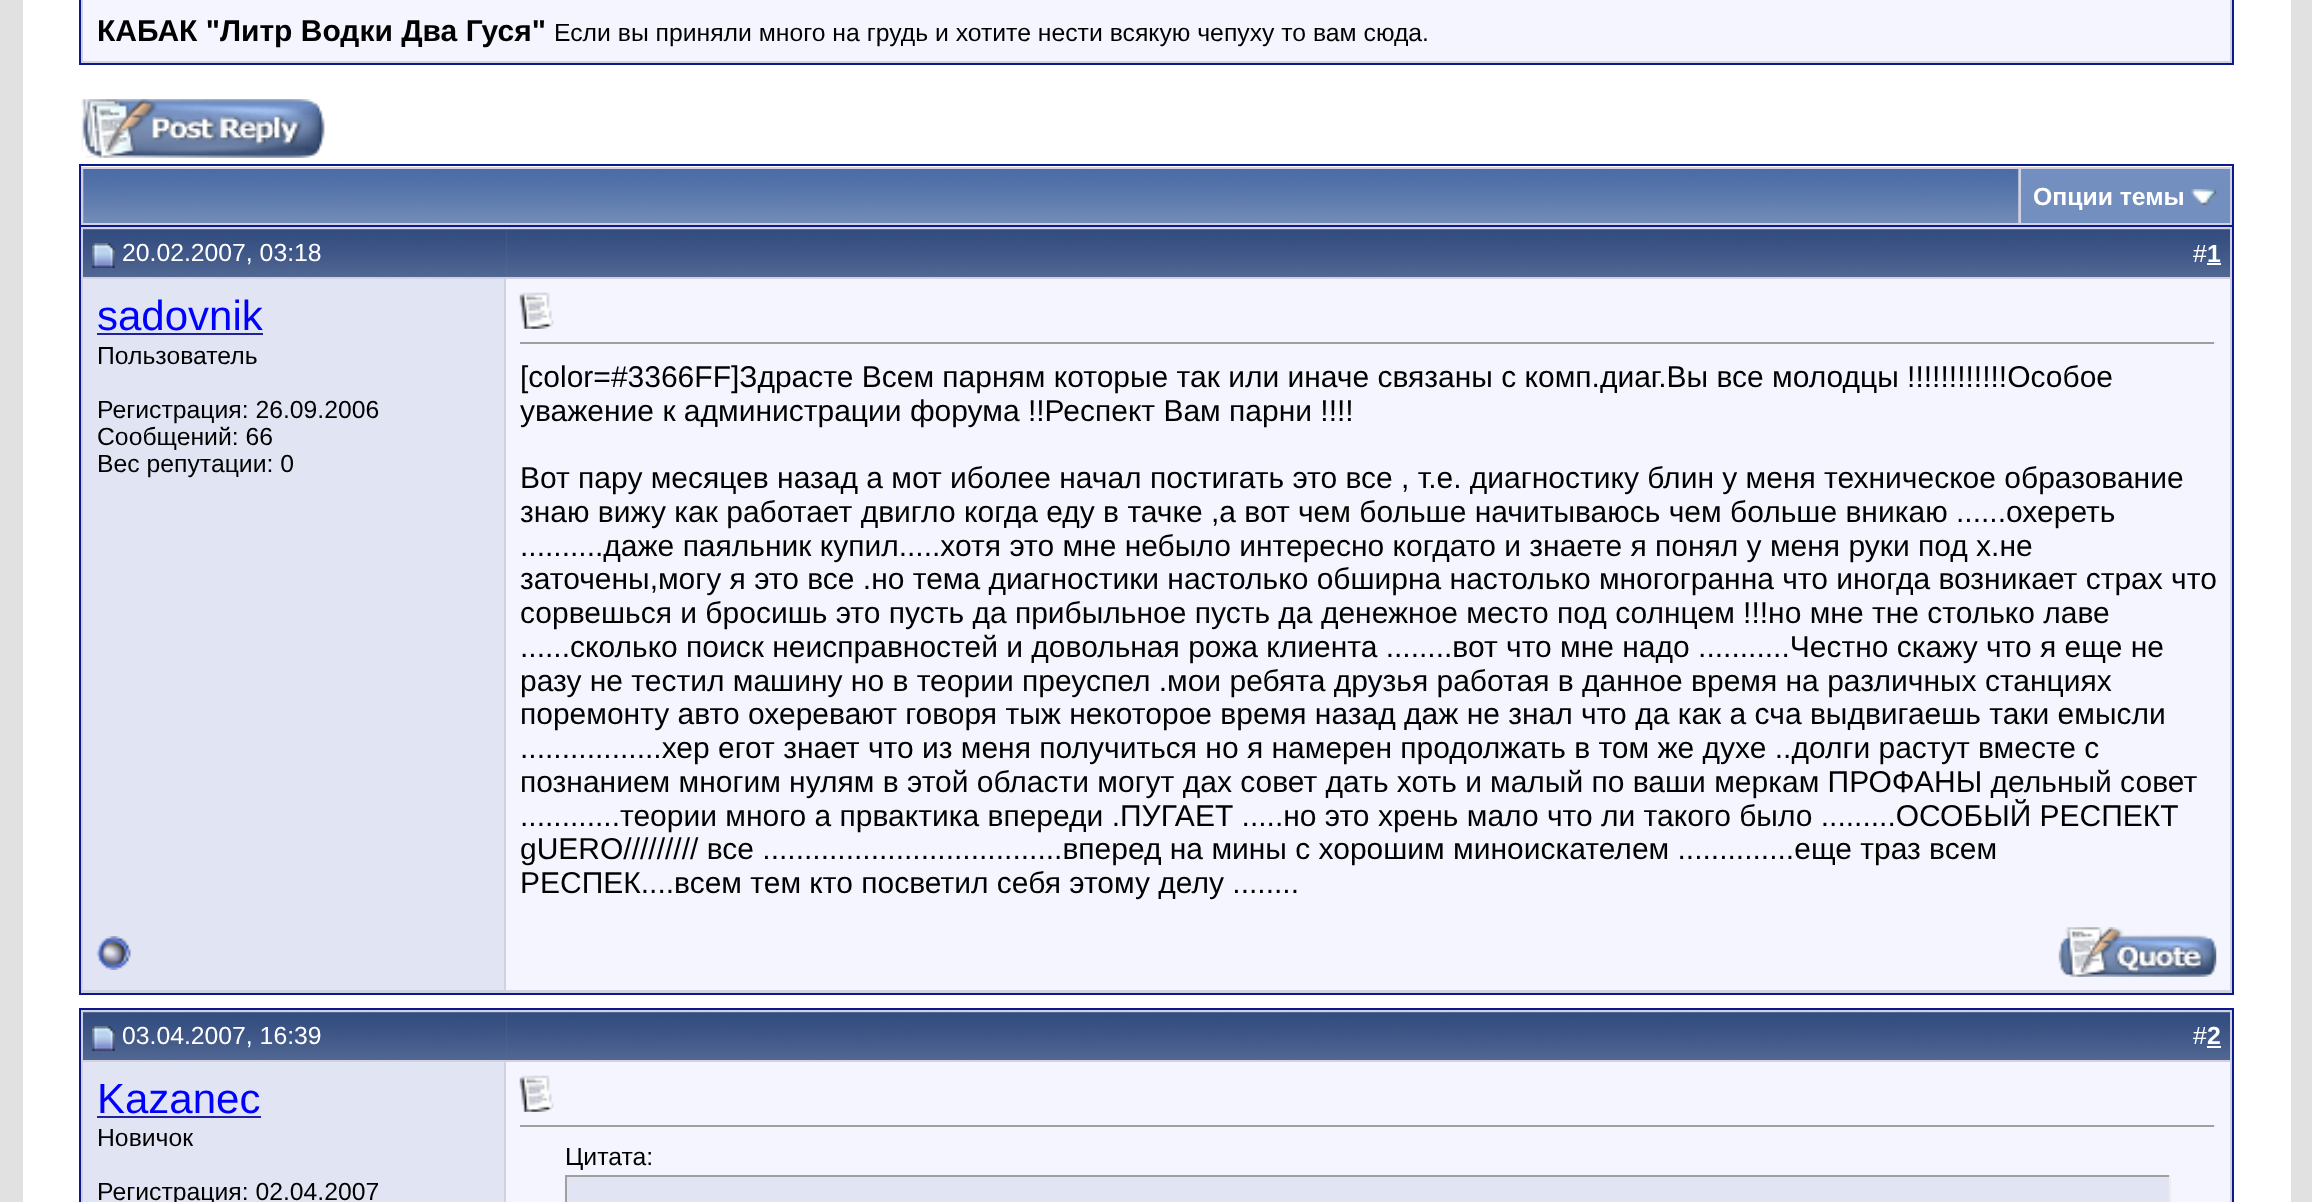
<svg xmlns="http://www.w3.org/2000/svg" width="2312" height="1202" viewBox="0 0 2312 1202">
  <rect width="100%" height="100%" fill="#e1e1e2"/>
  <rect x="23" y="0" width="2268" height="1202" fill="#ffffff"/>
  <rect x="80" y="-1" width="2153" height="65" fill="#d1d1e1" stroke="#0b198c" stroke-width="2"/>
  <rect x="83" y="0" width="2147" height="61" fill="#f5f5ff"/>
  <text x="97" y="41" font-family="Liberation Sans" font-size="30" font-weight="bold" fill="#000000">КАБАК "Литр Водки Два Гуся"</text>
  <text x="554" y="41" font-family="Liberation Sans" font-size="24.75" fill="#000000">Если вы приняли много на грудь и хотите нести всякую чепуху то вам сюда.</text>
  <image x="81" y="99" width="244" height="59" href="img1.png"/>
  <rect x="81" y="167" width="2151" height="58" fill="#d1d1e1"/>
  <rect x="79" y="164" width="2155" height="2" fill="#0b198c"/>
  <rect x="2232" y="164" width="2" height="61" fill="#0b198c"/>
  <rect x="79" y="164" width="2" height="61" fill="#0b198c"/>
  <image x="83" y="169" width="1936" height="54" href="img2.png"/>
  <rect x="2021" y="169" width="209" height="54" fill="#738fbf"/>
  <text x="2033" y="205" font-family="Liberation Sans" font-size="24.75" font-weight="bold" fill="#ffffff">Опции темы</text>
  <image x="2191" y="189" width="26" height="16" href="img3.png"/>
  <rect x="81" y="992" width="2151" height="1" fill="#d1d1e1"/>
  <rect x="80" y="226" width="2153" height="768" fill="none" stroke="#0b198c" stroke-width="2"/>
  <rect x="83" y="229" width="423" height="1" fill="#5c7099"/>
  <image x="83" y="229" width="423" height="48" href="img4.png"/>
  <rect x="81" y="227" width="2151" height="2" fill="#d1d1e1"/>
  <rect x="81" y="277" width="425" height="2" fill="#d1d1e1"/>
  <rect x="81" y="227" width="2" height="687" fill="#d1d1e1"/>
  <image x="92" y="243" width="23" height="25" href="img5.png"/>
  <text x="122" y="261" font-family="Liberation Sans" font-size="24.75" fill="#ffffff">20.02.2007, 03:18</text>
  <rect x="506" y="229" width="1724" height="48" fill="#5c7099"/>
  <image x="506" y="229" width="1724" height="48" href="img6.png"/>
  <rect x="2230" y="227" width="2" height="765" fill="#d1d1e1"/>
  <rect x="506" y="277" width="1726" height="2" fill="#d1d1e1"/>
  <text x="2193" y="262" font-family="Liberation Sans" font-size="24.75" fill="#ffffff">#</text>
  <text x="2207" y="262" font-family="Liberation Sans" font-size="24.75" font-weight="bold" fill="#ffffff">1</text>
  <rect x="2207" y="263" width="14" height="2" fill="#ffffff"/>
  <rect x="83" y="279" width="421" height="711" fill="#e1e4f2"/>
  <rect x="504" y="279" width="2" height="713" fill="#d1d1e1"/>
  <text x="97" y="330" font-family="Liberation Sans" font-size="42" fill="#0000ff">sadovnik</text>
  <rect x="97" y="333" width="166" height="2" fill="#22229c"/>
  <text x="97" y="364" font-family="Liberation Sans" font-size="24.75" fill="#000000">Пользователь</text>
  <text x="97" y="418" font-family="Liberation Sans" font-size="24.75" fill="#000000">Регистрация: 26.09.2006</text>
  <text x="97" y="445" font-family="Liberation Sans" font-size="24.75" fill="#000000">Сообщений: 66</text>
  <text x="97" y="472" font-family="Liberation Sans" font-size="24.75" fill="#000000">Вес репутации: 0</text>
  <rect x="506" y="279" width="1724" height="711" fill="#f5f5ff"/>
  <image x="519" y="292" width="35" height="37" href="img7.png"/>
  <rect x="520" y="342" width="1696" height="2" fill="#9f9f9f"/>
  <rect x="2214" y="342" width="2" height="2" fill="#eeeeee"/>
  <text x="520" y="387" font-family="Liberation Sans" font-size="30" fill="#000000">[color=#3366FF]Здрасте Всем парням которые так или иначе связаны с комп.диаг.Вы все молодцы !!!!!!!!!!!!Особое</text>
  <text x="520" y="421" font-family="Liberation Sans" font-size="30" fill="#000000">уважение к администрации форума !!Респект Вам парни !!!!</text>
  <text x="520" y="488" font-family="Liberation Sans" font-size="30" fill="#000000">Вот пару месяцев назад а мот иболее начал постигать это все , т.е. диагностику блин у меня техническое образование</text>
  <text x="520" y="522" font-family="Liberation Sans" font-size="30" fill="#000000">знаю вижу как работает двигло когда еду в тачке ,а вот чем больше начитываюсь чем больше вникаю ......охереть</text>
  <text x="520" y="556" font-family="Liberation Sans" font-size="30" fill="#000000">..........даже паяльник купил.....хотя это мне небыло интересно когдато и знаете я понял у меня руки под х.не</text>
  <text x="520" y="589" font-family="Liberation Sans" font-size="30" fill="#000000">заточены,могу я это все .но тема диагностики настолько обширна настолько многогранна что иногда возникает страх что</text>
  <text x="520" y="623" font-family="Liberation Sans" font-size="30" fill="#000000">сорвешься и бросишь это пусть да прибыльное пусть да денежное место под солнцем !!!но мне тне столько лаве</text>
  <text x="520" y="657" font-family="Liberation Sans" font-size="30" fill="#000000">......сколько поиск неисправностей и довольная рожа клиента ........вот что мне надо ...........Честно скажу что я еще не</text>
  <text x="520" y="691" font-family="Liberation Sans" font-size="30" fill="#000000">разу не тестил машину но в теории преуспел .мои ребята друзья работая в данное время на различных станциях</text>
  <text x="520" y="724" font-family="Liberation Sans" font-size="30" fill="#000000">поремонту авто охеревают говоря тыж некоторое время назад даж не знал что да как а сча выдвигаешь таки емысли</text>
  <text x="520" y="758" font-family="Liberation Sans" font-size="30" fill="#000000">.................хер егот знает что из меня получиться но я намерен продолжать в том же духе ..долги растут вместе с</text>
  <text x="520" y="792" font-family="Liberation Sans" font-size="30" fill="#000000">познанием многим нулям в этой области могут дах совет дать хоть и</text>
  <text x="1490" y="792" font-family="Liberation Sans" font-size="30" fill="#000000">малый по ваши меркам ПРОФАНЫ дельный совет</text>
  <text x="520" y="826" font-family="Liberation Sans" font-size="30" fill="#000000">............теории много а првактика впереди .ПУГАЕТ .....но это хрень мало что ли такого было .........ОСОБЫЙ РЕСПЕКТ</text>
  <text x="520" y="859" font-family="Liberation Sans" font-size="30" fill="#000000">gUERO///////// все ....................................вперед на мины с хорошим миноискателем ..............еще траз всем</text>
  <text x="520" y="893" font-family="Liberation Sans" font-size="30" fill="#000000">РЕСПЕК....всем тем кто посветил себя этому делу ........</text>
  <rect x="81" y="990" width="2151" height="2" fill="#d1d1e1"/>
  <rect x="81" y="914" width="2" height="78" fill="#d1d1e1"/>
  <image x="96" y="936" width="35" height="34" href="img8.png"/>
  <image x="2058" y="927" width="159" height="50" href="img9.png"/>
  <rect x="80" y="1009" width="2153" height="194" fill="none" stroke="#0b198c" stroke-width="2"/>
  <rect x="83" y="1012" width="423" height="1" fill="#5c7099"/>
  <image x="83" y="1012" width="423" height="48" href="img10.png"/>
  <rect x="81" y="1010" width="2151" height="2" fill="#d1d1e1"/>
  <rect x="81" y="1060" width="425" height="2" fill="#d1d1e1"/>
  <rect x="81" y="1010" width="2" height="192" fill="#d1d1e1"/>
  <image x="92" y="1026" width="23" height="25" href="img11.png"/>
  <text x="122" y="1044" font-family="Liberation Sans" font-size="24.75" fill="#ffffff">03.04.2007, 16:39</text>
  <rect x="506" y="1012" width="1724" height="48" fill="#5c7099"/>
  <image x="506" y="1012" width="1724" height="48" href="img12.png"/>
  <rect x="2230" y="1010" width="2" height="192" fill="#d1d1e1"/>
  <rect x="506" y="1060" width="1726" height="2" fill="#d1d1e1"/>
  <text x="2193" y="1044" font-family="Liberation Sans" font-size="24.75" fill="#ffffff">#</text>
  <text x="2207" y="1044" font-family="Liberation Sans" font-size="24.75" font-weight="bold" fill="#ffffff">2</text>
  <rect x="2207" y="1046" width="14" height="2" fill="#ffffff"/>
  <rect x="83" y="1062" width="421" height="140" fill="#e1e4f2"/>
  <rect x="504" y="1062" width="2" height="140" fill="#d1d1e1"/>
  <text x="97" y="1113" font-family="Liberation Sans" font-size="42" fill="#0000ff">Kazanec</text>
  <rect x="97" y="1116" width="164" height="2" fill="#22229c"/>
  <text x="97" y="1146" font-family="Liberation Sans" font-size="24.75" fill="#000000">Новичок</text>
  <text x="97" y="1200" font-family="Liberation Sans" font-size="24.75" fill="#000000">Регистрация: 02.04.2007</text>
  <rect x="506" y="1062" width="1724" height="140" fill="#f5f5ff"/>
  <image x="519" y="1075" width="35" height="37" href="img7.png"/>
  <rect x="520" y="1125" width="1696" height="2" fill="#9f9f9f"/>
  <rect x="2214" y="1125" width="2" height="2" fill="#eeeeee"/>
  <text x="565" y="1165" font-family="Liberation Sans" font-size="24.75" fill="#000000">Цитата:</text>
  <rect x="567" y="1177" width="1602" height="25" fill="#e1e4f2"/>
  <rect x="565" y="1175" width="1606" height="2" fill="#9f9f9f"/>
  <rect x="2169" y="1175" width="2" height="27" fill="#eeeeee"/>
  <rect x="565" y="1175" width="2" height="27" fill="#9f9f9f"/>
</svg>
